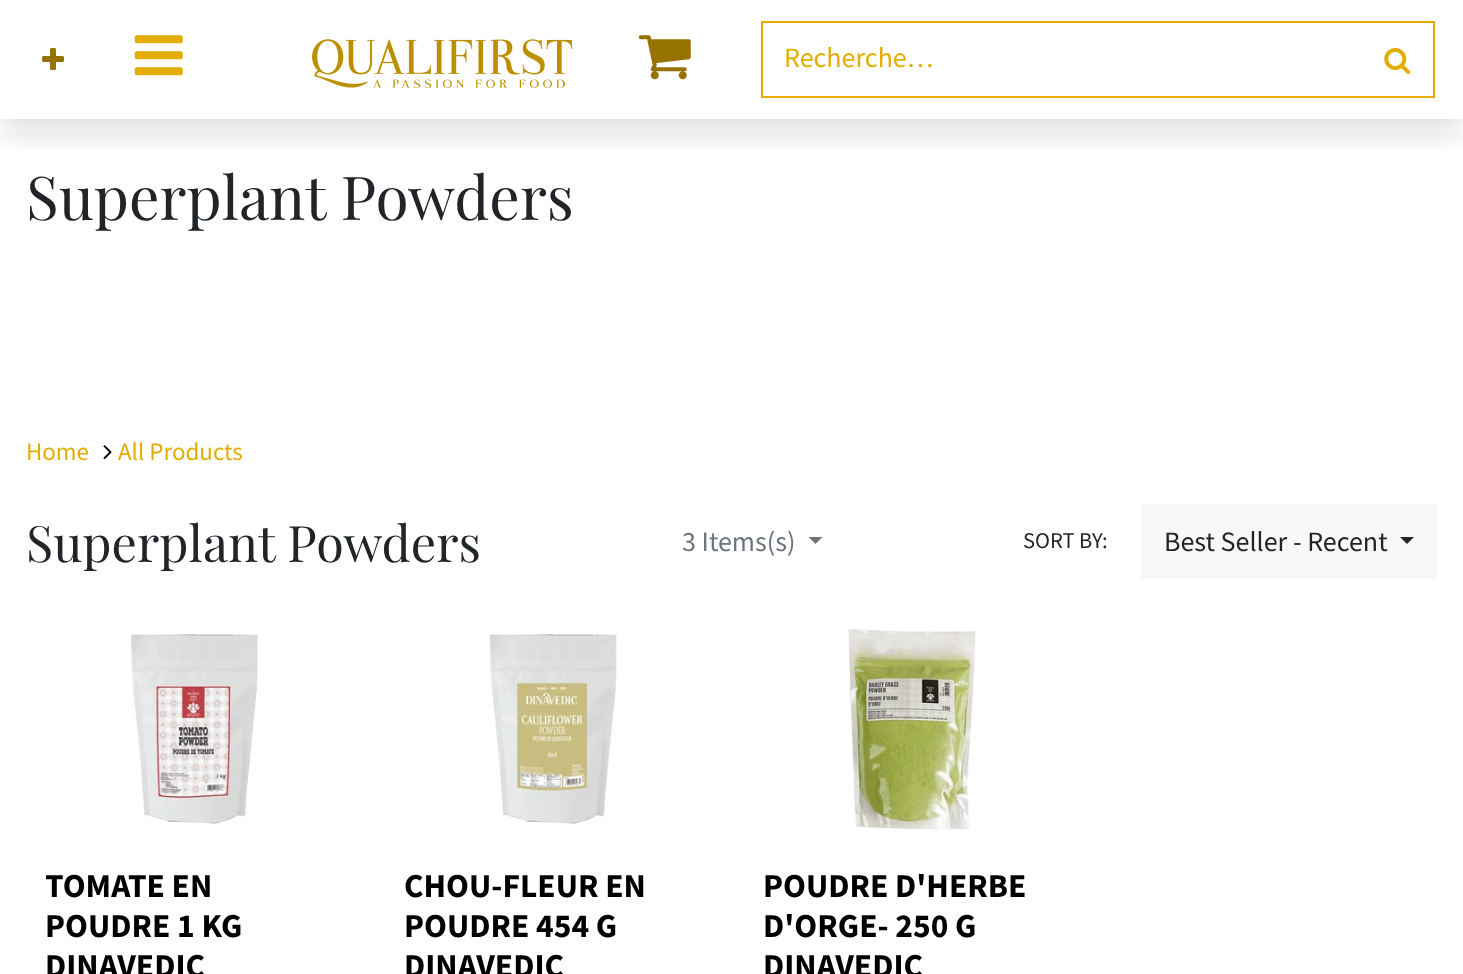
<svg xmlns="http://www.w3.org/2000/svg" width="1463" height="974" viewBox="0 0 1463 974">
  <defs>
    <clipPath id="clip1"><rect x="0" y="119" width="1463" height="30"/></clipPath>
    <filter id="blur1" x="-50%" y="-200%" width="200%" height="500%"><feGaussianBlur stdDeviation="14"/></filter>
    <clipPath id="clip2"><rect x="46" y="865" width="295" height="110"/></clipPath>
  </defs>
  <rect width="100%" height="100%" fill="#ffffff"/>
  <g clip-path="url(#clip1)">
    <rect x="0" y="14" width="1463" height="119" fill="#222222" fill-opacity="0.15" filter="url(#blur1)"/>
  </g>
  <image x="42" y="48" width="22" height="22" href="img1.png"/>
  <image x="134" y="35" width="49" height="41" href="img2.png"/>
  <image x="312" y="39" width="261" height="49" href="img3.png"/>
  <image x="638" y="35" width="53" height="45" href="img4.png"/>
  <rect x="762" y="22" width="672" height="75" fill="none" stroke="#e2ad00" stroke-width="2"/>
  <text x="784" y="67" font-family="Source Sans Pro" font-size="28" fill="#e2ad00">Recherche…</text>
  <image x="1384" y="48" width="27" height="26" href="img5.png"/>
  <text x="26" y="220" font-family="Playfair Display" font-size="60.5" fill="#212529">Superplant Powders</text>
  <text x="26" y="460" font-family="Source Sans Pro" font-size="25" fill="#e2ad00">Home</text>
  <image x="103" y="445" width="9" height="15" href="img6.png"/>
  <text x="118" y="460" font-family="Source Sans Pro" font-size="25" fill="#e2ad00">All Products</text>
  <text x="26" y="562" font-family="Playfair Display" font-size="50.25" fill="#212529">Superplant Powders</text>
  <text x="682" y="551" font-family="Source Sans Pro" font-size="28" fill="#6c757d">3 Items(s)</text>
  <path d="M808.5 537H822.5L815.5 544Z" fill="#6c757d"/>
  <text x="1023" y="548" font-family="Source Sans Pro" font-size="22.5" fill="#212529">SORT BY:</text>
  <rect x="1141" y="504" width="296" height="75" fill="#f9f8f6"/>
  <text x="1164" y="551" font-family="Source Sans Pro" font-size="28" fill="#212529">Best Seller - Recent</text>
  <path d="M1400 537H1414L1407 544Z" fill="#212529"/>
  <image x="130" y="634" width="128" height="190" href="img7.png"/>
  <g clip-path="url(#clip2)">
    <text x="45" y="897" font-family="Source Sans Pro" font-size="33.5" font-weight="bold" fill="#000000">TOMATE EN</text>
  </g>
  <text x="45" y="937" font-family="Source Sans Pro" font-size="33.5" font-weight="bold" fill="#000000">POUDRE 1 KG</text>
  <text x="45" y="977" font-family="Source Sans Pro" font-size="33.5" font-weight="bold" fill="#000000">DINAVEDIC</text>
  <image x="489" y="632" width="128" height="192" href="img8.png"/>
  <text x="404" y="897" font-family="Source Sans Pro" font-size="33.5" font-weight="bold" fill="#000000">CHOU-FLEUR EN</text>
  <text x="404" y="937" font-family="Source Sans Pro" font-size="33.5" font-weight="bold" fill="#000000">POUDRE 454 G</text>
  <text x="404" y="977" font-family="Source Sans Pro" font-size="33.5" font-weight="bold" fill="#000000">DINAVEDIC</text>
  <image x="848" y="628" width="128" height="202" href="img9.png"/>
  <text x="763" y="897" font-family="Source Sans Pro" font-size="33.5" font-weight="bold" fill="#000000">POUDRE D'HERBE</text>
  <text x="763" y="937" font-family="Source Sans Pro" font-size="33.5" font-weight="bold" fill="#000000">D'ORGE- 250 G</text>
  <text x="763" y="977" font-family="Source Sans Pro" font-size="33.5" font-weight="bold" fill="#000000">DINAVEDIC</text>
</svg>
